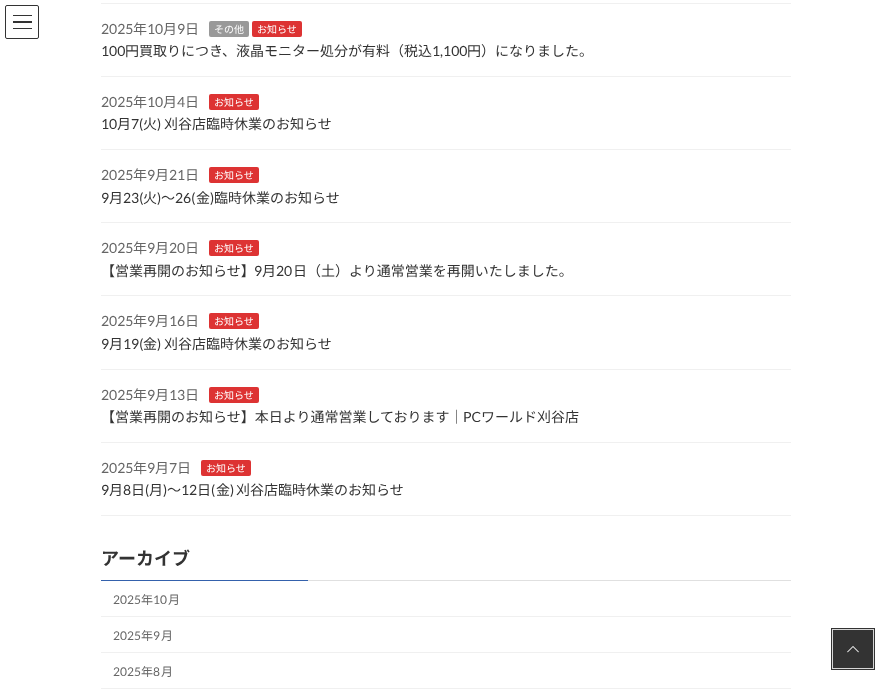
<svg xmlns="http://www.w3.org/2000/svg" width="891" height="689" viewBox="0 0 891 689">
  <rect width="100%" height="100%" fill="#ffffff"/>
  <rect x="13" y="15" width="19" height="1" fill="#333333"/>
  <rect x="13" y="21" width="19" height="2" fill="#333333"/>
  <rect x="13" y="28" width="19" height="1" fill="#333333"/>
  <rect x="5.5" y="5.5" width="33" height="33" rx="1.5" fill="none" stroke="#333333"/>
  <rect x="101" y="3" width="690" height="1" fill="#f0f0f0"/>
  <rect x="101" y="76" width="690" height="1" fill="#f0f0f0"/>
  <text x="101" y="34" font-family="Lato" font-size="14" fill="#666666">2025</text>
  <text x="133" y="34" font-family="Noto Sans JP" font-size="14" fill="#666666">年</text>
  <text x="147" y="34" font-family="Lato" font-size="14" fill="#666666">10</text>
  <text x="163" y="34" font-family="Noto Sans JP" font-size="14" fill="#666666">月</text>
  <text x="177" y="34" font-family="Lato" font-size="14" fill="#666666">9</text>
  <text x="185" y="34" font-family="Noto Sans JP" font-size="14" fill="#666666">日</text>
  <rect x="209" y="21" width="40" height="16" rx="2" fill="#999999"/>
  <text x="214" y="33" font-family="Noto Sans JP" font-size="10" fill="#ffffff">その他</text>
  <rect x="252" y="21" width="50" height="16" rx="2" fill="#dd3333"/>
  <text x="257" y="33" font-family="Noto Sans JP" font-size="10" fill="#ffffff">お知らせ</text>
  <text x="101" y="56" font-family="Lato" font-size="14" fill="#333333">100</text>
  <text x="125" y="56" font-family="Noto Sans JP" font-size="14" fill="#333333">円買取りにつき、液晶モニター処分が有料（税込</text>
  <text x="432" y="56" font-family="Lato" font-size="14" fill="#333333">1,100</text>
  <text x="467" y="56" font-family="Noto Sans JP" font-size="14" fill="#333333">円）になりました。</text>
  <rect x="101" y="149" width="690" height="1" fill="#f0f0f0"/>
  <text x="101" y="107" font-family="Lato" font-size="14" fill="#666666">2025</text>
  <text x="133" y="107" font-family="Noto Sans JP" font-size="14" fill="#666666">年</text>
  <text x="147" y="107" font-family="Lato" font-size="14" fill="#666666">10</text>
  <text x="163" y="107" font-family="Noto Sans JP" font-size="14" fill="#666666">月</text>
  <text x="177" y="107" font-family="Lato" font-size="14" fill="#666666">4</text>
  <text x="185" y="107" font-family="Noto Sans JP" font-size="14" fill="#666666">日</text>
  <rect x="209" y="94" width="50" height="16" rx="2" fill="#dd3333"/>
  <text x="214" y="106" font-family="Noto Sans JP" font-size="10" fill="#ffffff">お知らせ</text>
  <text x="101" y="129" font-family="Lato" font-size="14" fill="#333333">10</text>
  <text x="117" y="129" font-family="Noto Sans JP" font-size="14" fill="#333333">月</text>
  <text x="131" y="129" font-family="Lato" font-size="14" fill="#333333">7(</text>
  <text x="143" y="129" font-family="Noto Sans JP" font-size="14" fill="#333333">火</text>
  <text x="157" y="129" font-family="Lato" font-size="14" fill="#333333">)</text>
  <text x="164" y="129" font-family="Noto Sans JP" font-size="14" fill="#333333">刈谷店臨時休業のお知らせ</text>
  <rect x="101" y="222" width="690" height="1" fill="#f0f0f0"/>
  <text x="101" y="180" font-family="Lato" font-size="14" fill="#666666">2025</text>
  <text x="133" y="180" font-family="Noto Sans JP" font-size="14" fill="#666666">年</text>
  <text x="147" y="180" font-family="Lato" font-size="14" fill="#666666">9</text>
  <text x="155" y="180" font-family="Noto Sans JP" font-size="14" fill="#666666">月</text>
  <text x="169" y="180" font-family="Lato" font-size="14" fill="#666666">21</text>
  <text x="185" y="180" font-family="Noto Sans JP" font-size="14" fill="#666666">日</text>
  <rect x="209" y="167" width="50" height="16" rx="2" fill="#dd3333"/>
  <text x="214" y="179" font-family="Noto Sans JP" font-size="10" fill="#ffffff">お知らせ</text>
  <text x="101" y="203" font-family="Lato" font-size="14" fill="#333333">9</text>
  <text x="109" y="203" font-family="Noto Sans JP" font-size="14" fill="#333333">月</text>
  <text x="123" y="203" font-family="Lato" font-size="14" fill="#333333">23(</text>
  <text x="143" y="203" font-family="Noto Sans JP" font-size="14" fill="#333333">火</text>
  <text x="157" y="203" font-family="Lato" font-size="14" fill="#333333">)</text>
  <text x="161" y="203" font-family="Noto Sans JP" font-size="14" fill="#333333">～</text>
  <text x="175" y="203" font-family="Lato" font-size="14" fill="#333333">26(</text>
  <text x="196" y="203" font-family="Noto Sans JP" font-size="14" fill="#333333">金</text>
  <text x="210" y="203" font-family="Lato" font-size="14" fill="#333333">)</text>
  <text x="214" y="203" font-family="Noto Sans JP" font-size="14" fill="#333333">臨時休業のお知らせ</text>
  <rect x="101" y="295" width="690" height="1" fill="#f0f0f0"/>
  <text x="101" y="253" font-family="Lato" font-size="14" fill="#666666">2025</text>
  <text x="133" y="253" font-family="Noto Sans JP" font-size="14" fill="#666666">年</text>
  <text x="147" y="253" font-family="Lato" font-size="14" fill="#666666">9</text>
  <text x="155" y="253" font-family="Noto Sans JP" font-size="14" fill="#666666">月</text>
  <text x="169" y="253" font-family="Lato" font-size="14" fill="#666666">20</text>
  <text x="185" y="253" font-family="Noto Sans JP" font-size="14" fill="#666666">日</text>
  <rect x="209" y="240" width="50" height="16" rx="2" fill="#dd3333"/>
  <text x="214" y="252" font-family="Noto Sans JP" font-size="10" fill="#ffffff">お知らせ</text>
  <text x="101" y="276" font-family="Noto Sans JP" font-size="14" fill="#333333">【営業再開のお知らせ】</text>
  <text x="254" y="276" font-family="Lato" font-size="14" fill="#333333">9</text>
  <text x="262" y="276" font-family="Noto Sans JP" font-size="14" fill="#333333">月</text>
  <text x="276" y="276" font-family="Lato" font-size="14" fill="#333333">20</text>
  <text x="293" y="276" font-family="Noto Sans JP" font-size="14" fill="#333333">日（土）より通常営業を再開いたしました。</text>
  <rect x="101" y="369" width="690" height="1" fill="#f0f0f0"/>
  <text x="101" y="326" font-family="Lato" font-size="14" fill="#666666">2025</text>
  <text x="133" y="326" font-family="Noto Sans JP" font-size="14" fill="#666666">年</text>
  <text x="147" y="326" font-family="Lato" font-size="14" fill="#666666">9</text>
  <text x="155" y="326" font-family="Noto Sans JP" font-size="14" fill="#666666">月</text>
  <text x="169" y="326" font-family="Lato" font-size="14" fill="#666666">16</text>
  <text x="185" y="326" font-family="Noto Sans JP" font-size="14" fill="#666666">日</text>
  <rect x="209" y="313" width="50" height="16" rx="2" fill="#dd3333"/>
  <text x="214" y="325" font-family="Noto Sans JP" font-size="10" fill="#ffffff">お知らせ</text>
  <text x="101" y="349" font-family="Lato" font-size="14" fill="#333333">9</text>
  <text x="109" y="349" font-family="Noto Sans JP" font-size="14" fill="#333333">月</text>
  <text x="123" y="349" font-family="Lato" font-size="14" fill="#333333">19(</text>
  <text x="143" y="349" font-family="Noto Sans JP" font-size="14" fill="#333333">金</text>
  <text x="157" y="349" font-family="Lato" font-size="14" fill="#333333">)</text>
  <text x="164" y="349" font-family="Noto Sans JP" font-size="14" fill="#333333">刈谷店臨時休業のお知らせ</text>
  <rect x="101" y="442" width="690" height="1" fill="#f0f0f0"/>
  <text x="101" y="400" font-family="Lato" font-size="14" fill="#666666">2025</text>
  <text x="133" y="400" font-family="Noto Sans JP" font-size="14" fill="#666666">年</text>
  <text x="147" y="400" font-family="Lato" font-size="14" fill="#666666">9</text>
  <text x="155" y="400" font-family="Noto Sans JP" font-size="14" fill="#666666">月</text>
  <text x="169" y="400" font-family="Lato" font-size="14" fill="#666666">13</text>
  <text x="185" y="400" font-family="Noto Sans JP" font-size="14" fill="#666666">日</text>
  <rect x="209" y="387" width="50" height="16" rx="2" fill="#dd3333"/>
  <text x="214" y="399" font-family="Noto Sans JP" font-size="10" fill="#ffffff">お知らせ</text>
  <text x="101" y="422" font-family="Noto Sans JP" font-size="14" fill="#333333">【営業再開のお知らせ】本日より通常営業しております｜</text>
  <text x="463" y="422" font-family="Lato" font-size="14" fill="#333333">PC</text>
  <text x="481" y="422" font-family="Noto Sans JP" font-size="14" fill="#333333">ワールド刈谷店</text>
  <rect x="101" y="515" width="690" height="1" fill="#f0f0f0"/>
  <text x="101" y="473" font-family="Lato" font-size="14" fill="#666666">2025</text>
  <text x="133" y="473" font-family="Noto Sans JP" font-size="14" fill="#666666">年</text>
  <text x="147" y="473" font-family="Lato" font-size="14" fill="#666666">9</text>
  <text x="155" y="473" font-family="Noto Sans JP" font-size="14" fill="#666666">月</text>
  <text x="169" y="473" font-family="Lato" font-size="14" fill="#666666">7</text>
  <text x="177" y="473" font-family="Noto Sans JP" font-size="14" fill="#666666">日</text>
  <rect x="201" y="460" width="50" height="16" rx="2" fill="#dd3333"/>
  <text x="206" y="472" font-family="Noto Sans JP" font-size="10" fill="#ffffff">お知らせ</text>
  <text x="101" y="495" font-family="Lato" font-size="14" fill="#333333">9</text>
  <text x="109" y="495" font-family="Noto Sans JP" font-size="14" fill="#333333">月</text>
  <text x="123" y="495" font-family="Lato" font-size="14" fill="#333333">8</text>
  <text x="131" y="495" font-family="Noto Sans JP" font-size="14" fill="#333333">日</text>
  <text x="145" y="495" font-family="Lato" font-size="14" fill="#333333">(</text>
  <text x="149" y="495" font-family="Noto Sans JP" font-size="14" fill="#333333">月</text>
  <text x="163" y="495" font-family="Lato" font-size="14" fill="#333333">)</text>
  <text x="167" y="495" font-family="Noto Sans JP" font-size="14" fill="#333333">～</text>
  <text x="181" y="495" font-family="Lato" font-size="14" fill="#333333">12</text>
  <text x="197" y="495" font-family="Noto Sans JP" font-size="14" fill="#333333">日</text>
  <text x="211" y="495" font-family="Lato" font-size="14" fill="#333333">(</text>
  <text x="216" y="495" font-family="Noto Sans JP" font-size="14" fill="#333333">金</text>
  <text x="230" y="495" font-family="Lato" font-size="14" fill="#333333">)</text>
  <text x="236" y="495" font-family="Noto Sans JP" font-size="14" fill="#333333">刈谷店臨時休業のお知らせ</text>
  <rect x="308" y="580" width="483" height="1" fill="#e0e0e0"/>
  <text x="101" y="565" font-family="Noto Sans JP" font-size="18" font-weight="bold" fill="#333333">アーカイブ</text>
  <rect x="101" y="580" width="207" height="1" fill="#3461ac"/>
  <rect x="101" y="616" width="690" height="1" fill="#f0f0f0"/>
  <text x="113" y="604" font-family="Lato" font-size="12" fill="#666666">2025</text>
  <text x="141" y="604" font-family="Noto Sans JP" font-size="12" fill="#666666">年</text>
  <text x="153" y="604" font-family="Lato" font-size="12" fill="#666666">10</text>
  <text x="168" y="604" font-family="Noto Sans JP" font-size="12" fill="#666666">月</text>
  <rect x="101" y="652" width="690" height="1" fill="#f0f0f0"/>
  <text x="113" y="640" font-family="Lato" font-size="12" fill="#666666">2025</text>
  <text x="141" y="640" font-family="Noto Sans JP" font-size="12" fill="#666666">年</text>
  <text x="153" y="640" font-family="Lato" font-size="12" fill="#666666">9</text>
  <text x="161" y="640" font-family="Noto Sans JP" font-size="12" fill="#666666">月</text>
  <rect x="101" y="688" width="690" height="1" fill="#f0f0f0"/>
  <text x="113" y="676" font-family="Lato" font-size="12" fill="#666666">2025</text>
  <text x="141" y="676" font-family="Noto Sans JP" font-size="12" fill="#666666">年</text>
  <text x="153" y="676" font-family="Lato" font-size="12" fill="#666666">8</text>
  <text x="161" y="676" font-family="Noto Sans JP" font-size="12" fill="#666666">月</text>
  <rect x="832" y="629" width="42" height="40" fill="none" stroke="#333333" stroke-width="2"/>
  <rect x="832.5" y="629.5" width="41" height="39" fill="none" stroke="#d6d6d6"/>
  <rect x="833" y="630" width="40" height="38" fill="#333333"/>
  <image x="847" y="646" width="12" height="7" href="img1.png"/>
</svg>
